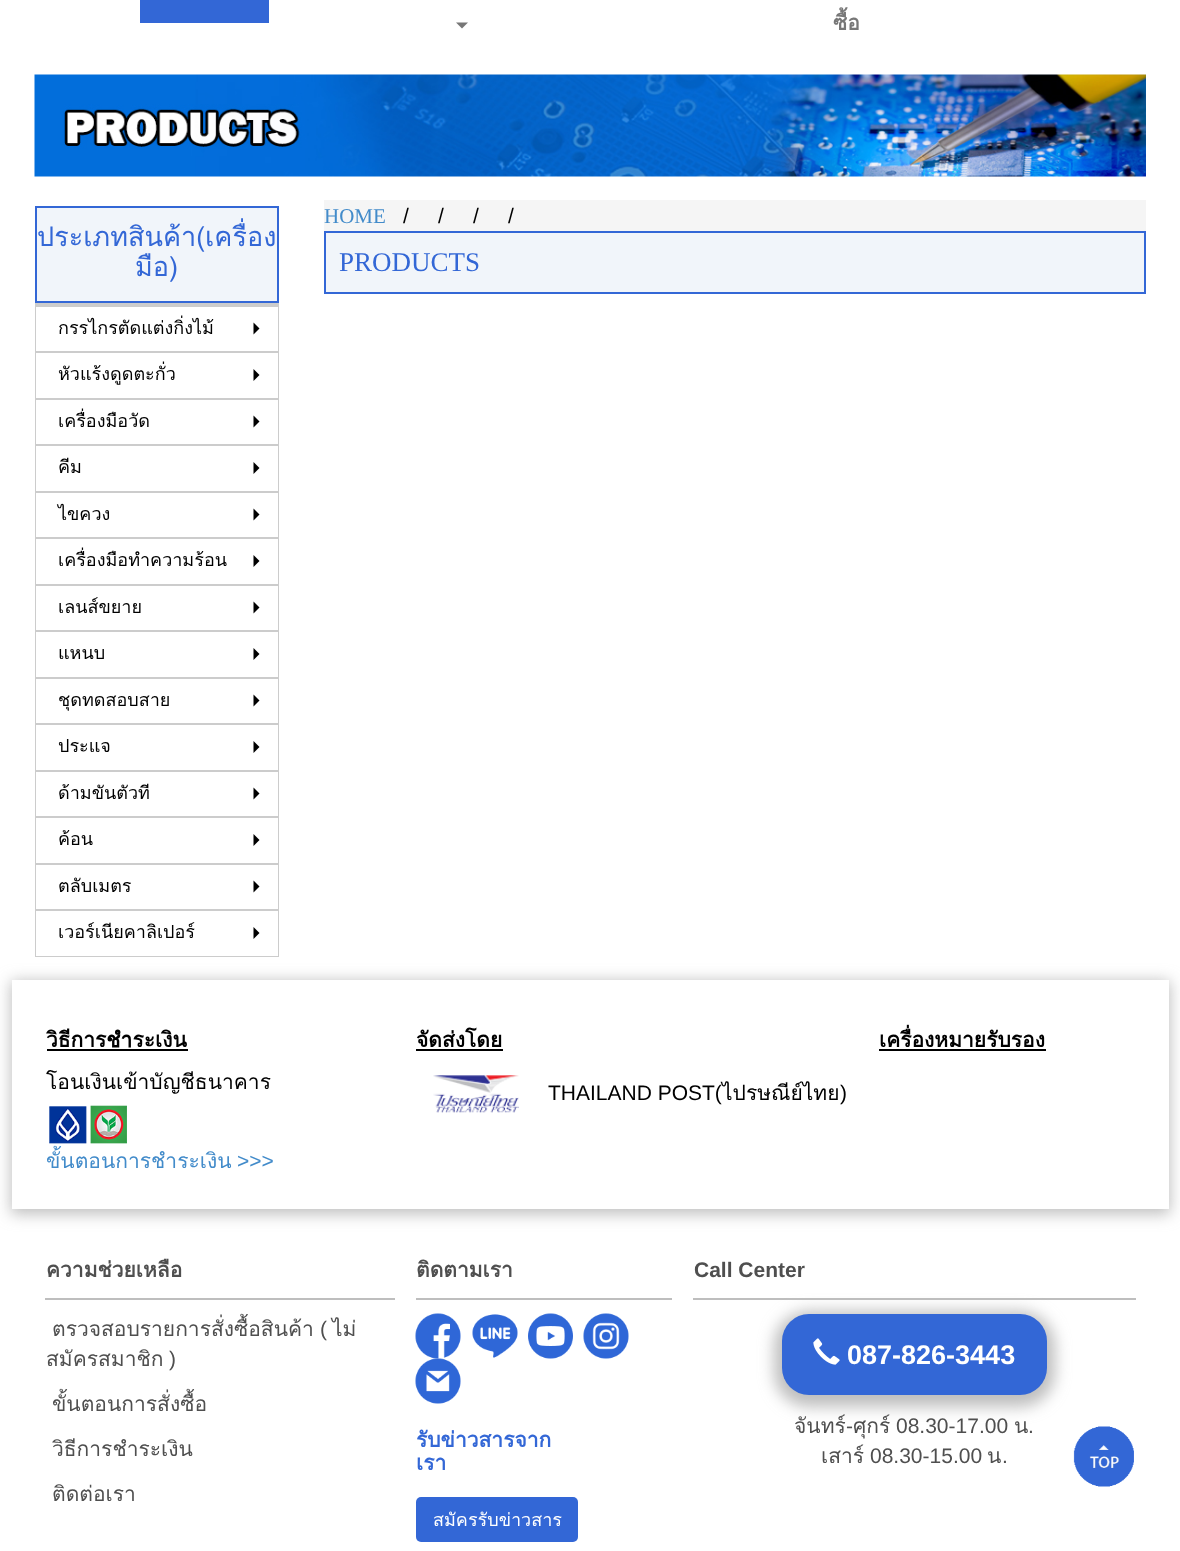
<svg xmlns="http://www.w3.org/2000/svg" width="1180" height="1551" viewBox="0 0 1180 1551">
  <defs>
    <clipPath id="clip1"><path d="M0 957H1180V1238H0ZM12 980H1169V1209H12Z" clip-rule="evenodd"/></clipPath>
    <filter id="blur1" x="-50%" y="-200%" width="200%" height="500%"><feGaussianBlur stdDeviation="7.5"/></filter>
  </defs>
  <rect width="100%" height="100%" fill="#ffffff"/>
  <rect x="140" y="0" width="129" height="23" fill="#3367d6"/>
  <path d="M456 22.5H468L462 28.5Z" fill="#777777"/>
  <text x="833" y="30" font-family="Loma" font-size="21" font-weight="bold" fill="#777777">ซื้อ</text>
  <image x="34" y="74" width="1112" height="103" href="img1.png"/>
  <rect x="36" y="207" width="242" height="95" fill="#f1f5fa" stroke="#3367d6" stroke-width="2"/>
  <text x="37" y="246" font-family="Loma" font-size="27" fill="#3367d6">ประเภทสินค้า(เครื่อง</text>
  <text x="135" y="276" font-family="Loma" font-size="27" fill="#3367d6">มือ)</text>
  <rect x="36" y="304" width="242" height="652" fill="none" stroke="#cccccc" stroke-width="2"/>
  <rect x="36" y="307" width="242" height="44" fill="#ffffff"/>
  <rect x="36" y="305" width="242" height="2" fill="#cccccc"/>
  <text x="58" y="334" font-family="Loma" font-size="18" fill="#000000">กรรไกรตัดแต่งกิ่งไม้</text>
  <path d="M253.5 334.5V322.5L259.5 328.5Z" fill="#000000"/>
  <rect x="36" y="353" width="242" height="45" fill="#ffffff"/>
  <rect x="36" y="351" width="242" height="2" fill="#cccccc"/>
  <text x="58" y="380" font-family="Loma" font-size="18" fill="#000000">หัวแร้งดูดตะกั่ว</text>
  <path d="M253.5 381V369L259.5 375Z" fill="#000000"/>
  <rect x="36" y="400" width="242" height="44" fill="#ffffff"/>
  <rect x="36" y="398" width="242" height="2" fill="#cccccc"/>
  <text x="58" y="427" font-family="Loma" font-size="18" fill="#000000">เครื่องมือวัด</text>
  <path d="M253.5 427.5V415.5L259.5 421.5Z" fill="#000000"/>
  <rect x="36" y="446" width="242" height="45" fill="#ffffff"/>
  <rect x="36" y="444" width="242" height="2" fill="#cccccc"/>
  <text x="58" y="473" font-family="Loma" font-size="18" fill="#000000">คีม</text>
  <path d="M253.5 474V462L259.5 468Z" fill="#000000"/>
  <rect x="36" y="493" width="242" height="44" fill="#ffffff"/>
  <rect x="36" y="491" width="242" height="2" fill="#cccccc"/>
  <text x="58" y="520" font-family="Loma" font-size="18" fill="#000000">ไขควง</text>
  <path d="M253.5 520.5V508.5L259.5 514.5Z" fill="#000000"/>
  <rect x="36" y="539" width="242" height="45" fill="#ffffff"/>
  <rect x="36" y="537" width="242" height="2" fill="#cccccc"/>
  <text x="58" y="566" font-family="Loma" font-size="18" fill="#000000">เครื่องมือทำความร้อน</text>
  <path d="M253.5 567V555L259.5 561Z" fill="#000000"/>
  <rect x="36" y="586" width="242" height="44" fill="#ffffff"/>
  <rect x="36" y="584" width="242" height="2" fill="#cccccc"/>
  <text x="58" y="613" font-family="Loma" font-size="18" fill="#000000">เลนส์ขยาย</text>
  <path d="M253.5 613.5V601.5L259.5 607.5Z" fill="#000000"/>
  <rect x="36" y="632" width="242" height="45" fill="#ffffff"/>
  <rect x="36" y="630" width="242" height="2" fill="#cccccc"/>
  <text x="58" y="659" font-family="Loma" font-size="18" fill="#000000">แหนบ</text>
  <path d="M253.5 660V648L259.5 654Z" fill="#000000"/>
  <rect x="36" y="679" width="242" height="44" fill="#ffffff"/>
  <rect x="36" y="677" width="242" height="2" fill="#cccccc"/>
  <text x="58" y="706" font-family="Loma" font-size="18" fill="#000000">ชุดทดสอบสาย</text>
  <path d="M253.5 706.5V694.5L259.5 700.5Z" fill="#000000"/>
  <rect x="36" y="725" width="242" height="45" fill="#ffffff"/>
  <rect x="36" y="723" width="242" height="2" fill="#cccccc"/>
  <text x="58" y="752" font-family="Loma" font-size="18" fill="#000000">ประแจ</text>
  <path d="M253.5 753V741L259.5 747Z" fill="#000000"/>
  <rect x="36" y="772" width="242" height="44" fill="#ffffff"/>
  <rect x="36" y="770" width="242" height="2" fill="#cccccc"/>
  <text x="58" y="799" font-family="Loma" font-size="18" fill="#000000">ด้ามขันตัวที</text>
  <path d="M253.5 799.5V787.5L259.5 793.5Z" fill="#000000"/>
  <rect x="36" y="818" width="242" height="45" fill="#ffffff"/>
  <rect x="36" y="816" width="242" height="2" fill="#cccccc"/>
  <text x="58" y="845" font-family="Loma" font-size="18" fill="#000000">ค้อน</text>
  <path d="M253.5 846V834L259.5 840Z" fill="#000000"/>
  <rect x="36" y="865" width="242" height="44" fill="#ffffff"/>
  <rect x="36" y="863" width="242" height="2" fill="#cccccc"/>
  <text x="58" y="892" font-family="Loma" font-size="18" fill="#000000">ตลับเมตร</text>
  <path d="M253.5 892.5V880.5L259.5 886.5Z" fill="#000000"/>
  <rect x="36" y="911" width="242" height="45" fill="#ffffff"/>
  <rect x="36" y="909" width="242" height="2" fill="#cccccc"/>
  <text x="58" y="938" font-family="Loma" font-size="18" fill="#000000">เวอร์เนียคาลิเปอร์</text>
  <path d="M253.5 939V927L259.5 933Z" fill="#000000"/>
  <rect x="324" y="200" width="822" height="31" fill="#f5f5f5"/>
  <text x="324" y="223" font-family="Liberation Serif" font-size="21" fill="#428bca">HOME</text>
  <text x="403" y="223" font-family="Liberation Sans" font-size="21" fill="#000000">/</text>
  <text x="438" y="223" font-family="Liberation Sans" font-size="21" fill="#000000">/</text>
  <text x="473" y="223" font-family="Liberation Sans" font-size="21" fill="#000000">/</text>
  <text x="508" y="223" font-family="Liberation Sans" font-size="21" fill="#000000">/</text>
  <rect x="325" y="232" width="820" height="61" fill="#f1f5fa" stroke="#3367d6" stroke-width="2"/>
  <text x="339" y="271" font-family="Liberation Serif" font-size="27" fill="#3367d6">PRODUCTS</text>
  <g clip-path="url(#clip1)">
    <rect x="11" y="981" width="1159" height="233" fill="#bebebe" filter="url(#blur1)"/>
  </g>
  <text x="46" y="1047" font-family="Loma" font-size="21" font-weight="bold" fill="#000000">วิธีการชำระเงิน</text>
  <rect x="47" y="1049" width="141" height="2" fill="#000000"/>
  <text x="46" y="1089" font-family="Loma" font-size="21" fill="#000000">โอนเงินเข้าบัญชีธนาคาร</text>
  <image x="49" y="1106" width="38" height="38" href="img2.png"/>
  <image x="90" y="1105" width="37" height="39" href="img3.png"/>
  <text x="46" y="1168" font-family="Loma" font-size="21" fill="#428bca">ขั้นตอนการชำระเงิน</text>
  <text x="237" y="1168" font-family="Liberation Sans" font-size="21" fill="#428bca">&gt;&gt;&gt;</text>
  <text x="416" y="1047" font-family="Loma" font-size="21" font-weight="bold" fill="#000000">จัดส่งโดย</text>
  <rect x="416" y="1049" width="87" height="2" fill="#000000"/>
  <image x="433" y="1075" width="86" height="38" href="img4.png"/>
  <text x="548" y="1100" font-family="Liberation Sans" font-size="21" fill="#000000">THAILAND POST(</text>
  <text x="722" y="1100" font-family="Loma" font-size="21" fill="#000000">ไปรษณีย์ไทย</text>
  <text x="840" y="1100" font-family="Liberation Sans" font-size="21" fill="#000000">)</text>
  <text x="879" y="1047" font-family="Loma" font-size="21" font-weight="bold" fill="#000000">เครื่องหมายรับรอง</text>
  <rect x="879" y="1049" width="167" height="2" fill="#000000"/>
  <rect x="45" y="1298" width="350" height="2" fill="#bebebe"/>
  <text x="46" y="1277" font-family="Loma" font-size="21" font-weight="bold" fill="#4f4f4f">ความช่วยเหลือ</text>
  <text x="52" y="1336" font-family="Loma" font-size="21" fill="#4f4f4f">ตรวจสอบรายการสั่งซื้อสินค้า</text>
  <text x="320" y="1336" font-family="Liberation Sans" font-size="21" fill="#4f4f4f">(</text>
  <text x="332" y="1336" font-family="Loma" font-size="21" fill="#4f4f4f">ไม่</text>
  <text x="46" y="1366" font-family="Loma" font-size="21" fill="#4f4f4f">สมัครสมาชิก</text>
  <text x="169" y="1366" font-family="Liberation Sans" font-size="21" fill="#4f4f4f">)</text>
  <text x="52" y="1411" font-family="Loma" font-size="21" fill="#4f4f4f">ขั้นตอนการสั่งซื้อ</text>
  <text x="52" y="1456" font-family="Loma" font-size="21" fill="#4f4f4f">วิธีการชำระเงิน</text>
  <text x="52" y="1501" font-family="Loma" font-size="21" fill="#4f4f4f">ติดต่อเรา</text>
  <rect x="416" y="1298" width="256" height="2" fill="#bebebe"/>
  <text x="416" y="1277" font-family="Loma" font-size="21" font-weight="bold" fill="#4f4f4f">ติดตามเรา</text>
  <image x="415" y="1313" width="46" height="46" href="img5.png"/>
  <image x="472" y="1314" width="46" height="44" href="img6.png"/>
  <image x="528" y="1313" width="45" height="46" href="img7.png"/>
  <image x="583" y="1313" width="46" height="46" href="img8.png"/>
  <image x="415" y="1358" width="46" height="46" href="img9.png"/>
  <text x="416" y="1447" font-family="Loma" font-size="21" font-weight="bold" fill="#3367d6">รับข่าวสารจาก</text>
  <text x="416" y="1470" font-family="Loma" font-size="21" font-weight="bold" fill="#3367d6">เรา</text>
  <rect x="416" y="1497" width="162" height="45" rx="5" fill="#3367d6"/>
  <text x="433" y="1526" font-family="Loma" font-size="18" fill="#ffffff">สมัครรับข่าวสาร</text>
  <rect x="693" y="1298" width="443" height="2" fill="#bebebe"/>
  <text x="694" y="1277" font-family="Liberation Sans" font-size="21" font-weight="bold" fill="#4f4f4f">Call Center</text>
  <rect x="774" y="1311" width="281" height="96" rx="35" fill="#bebebe" filter="url(#blur1)"/>
  <rect x="782" y="1314" width="265" height="81" rx="27" fill="#3367d6"/>
  <image x="813" y="1338" width="27" height="27" href="img10.png"/>
  <text x="847" y="1364" font-family="Liberation Sans" font-size="27" font-weight="bold" fill="#ffffff">087-826-3443</text>
  <text x="794" y="1433" font-family="Loma" font-size="21" fill="#4f4f4f">จันทร์</text>
  <text x="846" y="1433" font-family="Liberation Sans" font-size="21" fill="#4f4f4f">-</text>
  <text x="853" y="1433" font-family="Loma" font-size="21" fill="#4f4f4f">ศุกร์</text>
  <text x="896" y="1433" font-family="Liberation Sans" font-size="21" fill="#4f4f4f">08.30-17.00</text>
  <text x="1014" y="1433" font-family="Loma" font-size="21" fill="#4f4f4f">น</text>
  <text x="1028" y="1433" font-family="Liberation Sans" font-size="21" fill="#4f4f4f">.</text>
  <text x="821" y="1463" font-family="Loma" font-size="21" fill="#4f4f4f">เสาร์</text>
  <text x="870" y="1463" font-family="Liberation Sans" font-size="21" fill="#4f4f4f">08.30-15.00</text>
  <text x="987" y="1463" font-family="Loma" font-size="21" fill="#4f4f4f">น</text>
  <text x="1002" y="1463" font-family="Liberation Sans" font-size="21" fill="#4f4f4f">.</text>
  <image x="1073" y="1426" width="61" height="61" href="img11.png"/>
</svg>
